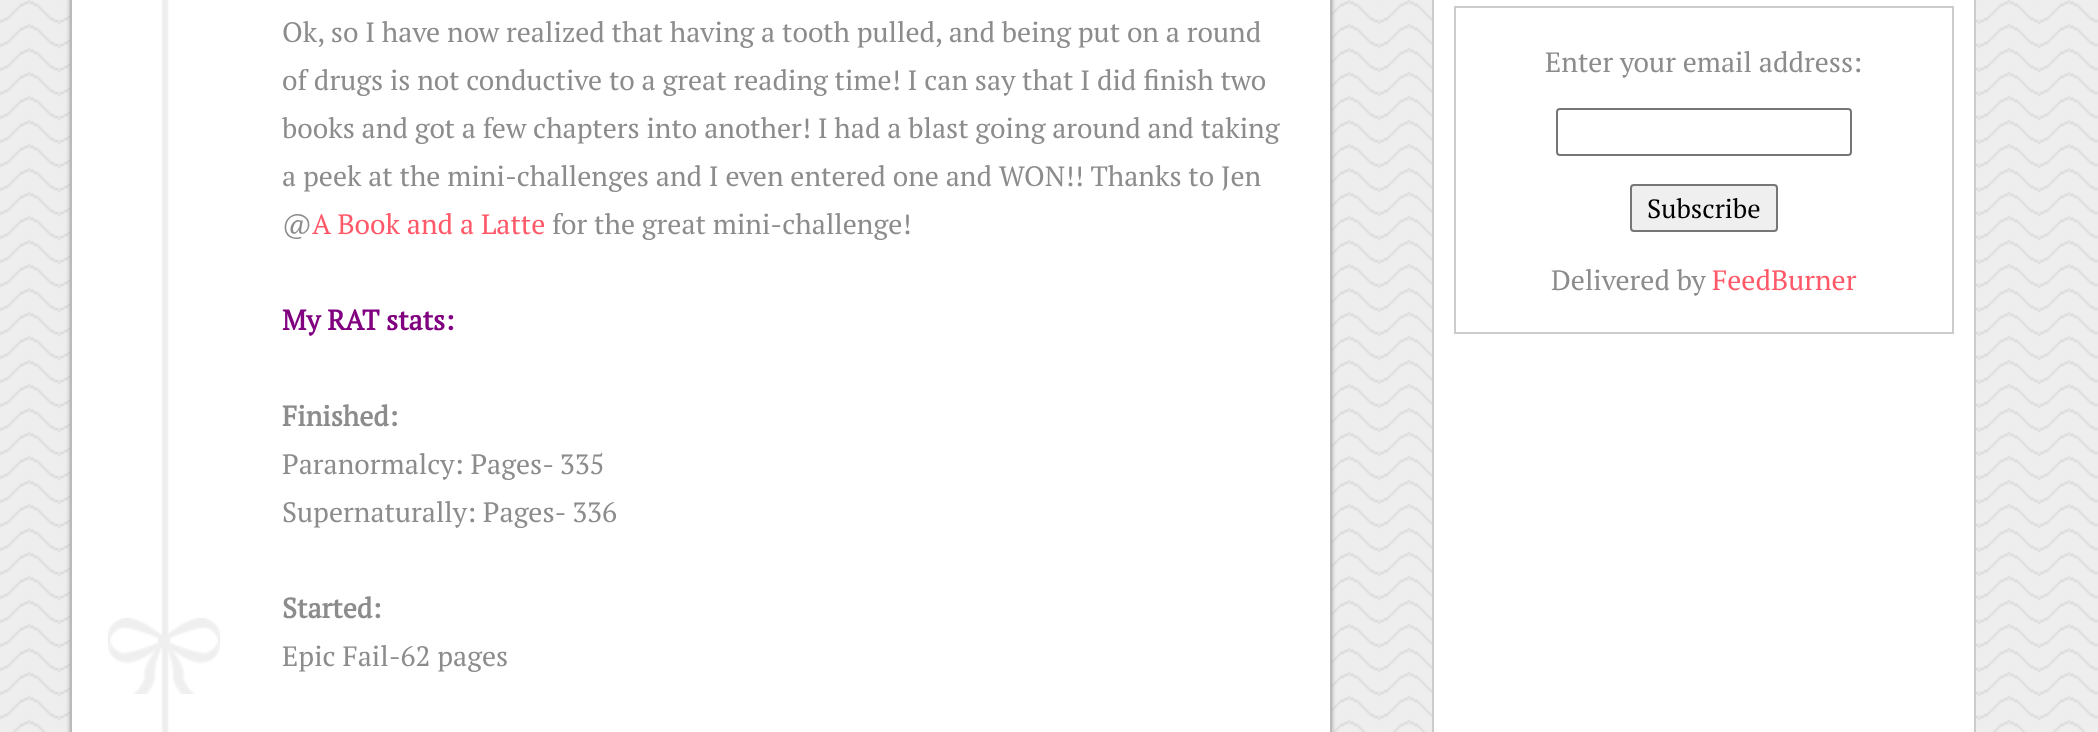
<svg xmlns="http://www.w3.org/2000/svg" width="2098" height="732" viewBox="0 0 2098 732">
  <defs>
    <filter id="blur1" x="-50%" y="-200%" width="200%" height="500%"><feGaussianBlur stdDeviation="2"/></filter>
  </defs>
  <rect width="100%" height="100%" fill="#ffffff"/>
  <image x="0" y="0" width="2098" height="732" href="img1.png"/>
  <rect x="70" y="-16" width="1262" height="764" rx="10" fill="#a3a3a3" filter="url(#blur1)"/>
  <image x="72" y="0" width="1258" height="732" href="img2.png"/>
  <rect x="71" y="-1" width="1260" height="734" fill="none" stroke="#bababa" stroke-width="2"/>
  <image x="108" y="618" width="112" height="76" href="img3.png"/>
  <text x="282" y="42" font-family="PT Serif" font-size="28" fill="#8c8c8c">Ok, so I have now realized that having a tooth pulled, and being put on a round</text>
  <text x="282" y="90" font-family="PT Serif" font-size="28" fill="#8c8c8c">of drugs is not conductive to a great reading time! I can say that I did finish two</text>
  <text x="282" y="138" font-family="PT Serif" font-size="28" fill="#8c8c8c">books and got a few chapters into another! I had a blast going around and taking</text>
  <text x="282" y="186" font-family="PT Serif" font-size="28" fill="#8c8c8c">a peek at the mini-challenges and I even entered one and WON!! Thanks to Jen</text>
  <text x="282" y="234" font-family="PT Serif" font-size="28" fill="#8c8c8c">@</text>
  <text x="312" y="234" font-family="PT Serif" font-size="28" fill="#ff5969">A Book and a Latte</text>
  <text x="552" y="234" font-family="PT Serif" font-size="28" fill="#8c8c8c">for the great mini-challenge!</text>
  <text x="282" y="330" font-family="PT Serif" font-size="28" font-weight="bold" fill="#800080">My RAT stats:</text>
  <text x="282" y="426" font-family="PT Serif" font-size="28" font-weight="bold" fill="#8c8c8c">Finished:</text>
  <text x="282" y="474" font-family="PT Serif" font-size="28" fill="#8c8c8c">Paranormalcy: Pages- 335</text>
  <text x="282" y="522" font-family="PT Serif" font-size="28" fill="#8c8c8c">Supernaturally: Pages- 336</text>
  <text x="282" y="618" font-family="PT Serif" font-size="28" font-weight="bold" fill="#8c8c8c">Started:</text>
  <text x="282" y="666" font-family="PT Serif" font-size="28" fill="#8c8c8c">Epic Fail-62 pages</text>
  <rect x="1433" y="-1" width="542" height="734" fill="#ffffff" stroke="#cccccc" stroke-width="2"/>
  <rect x="1455" y="7" width="498" height="326" fill="none" stroke="#cccccc" stroke-width="2"/>
  <text x="1545" y="72" font-family="PT Serif" font-size="28" fill="#8c8c8c">Enter your email address:</text>
  <rect x="1557" y="109" width="294" height="46" rx="3" fill="none" stroke="#767676" stroke-width="2"/>
  <rect x="1631" y="185" width="146" height="46" rx="3" fill="#efefef" stroke="#767676" stroke-width="2"/>
  <text x="1647" y="218" font-family="PT Serif" font-size="26.5" fill="#000000">Subscribe</text>
  <text x="1551" y="290" font-family="PT Serif" font-size="28" fill="#8c8c8c">Delivered by</text>
  <text x="1712" y="290" font-family="PT Serif" font-size="28" fill="#ff5969">FeedBurner</text>
</svg>
